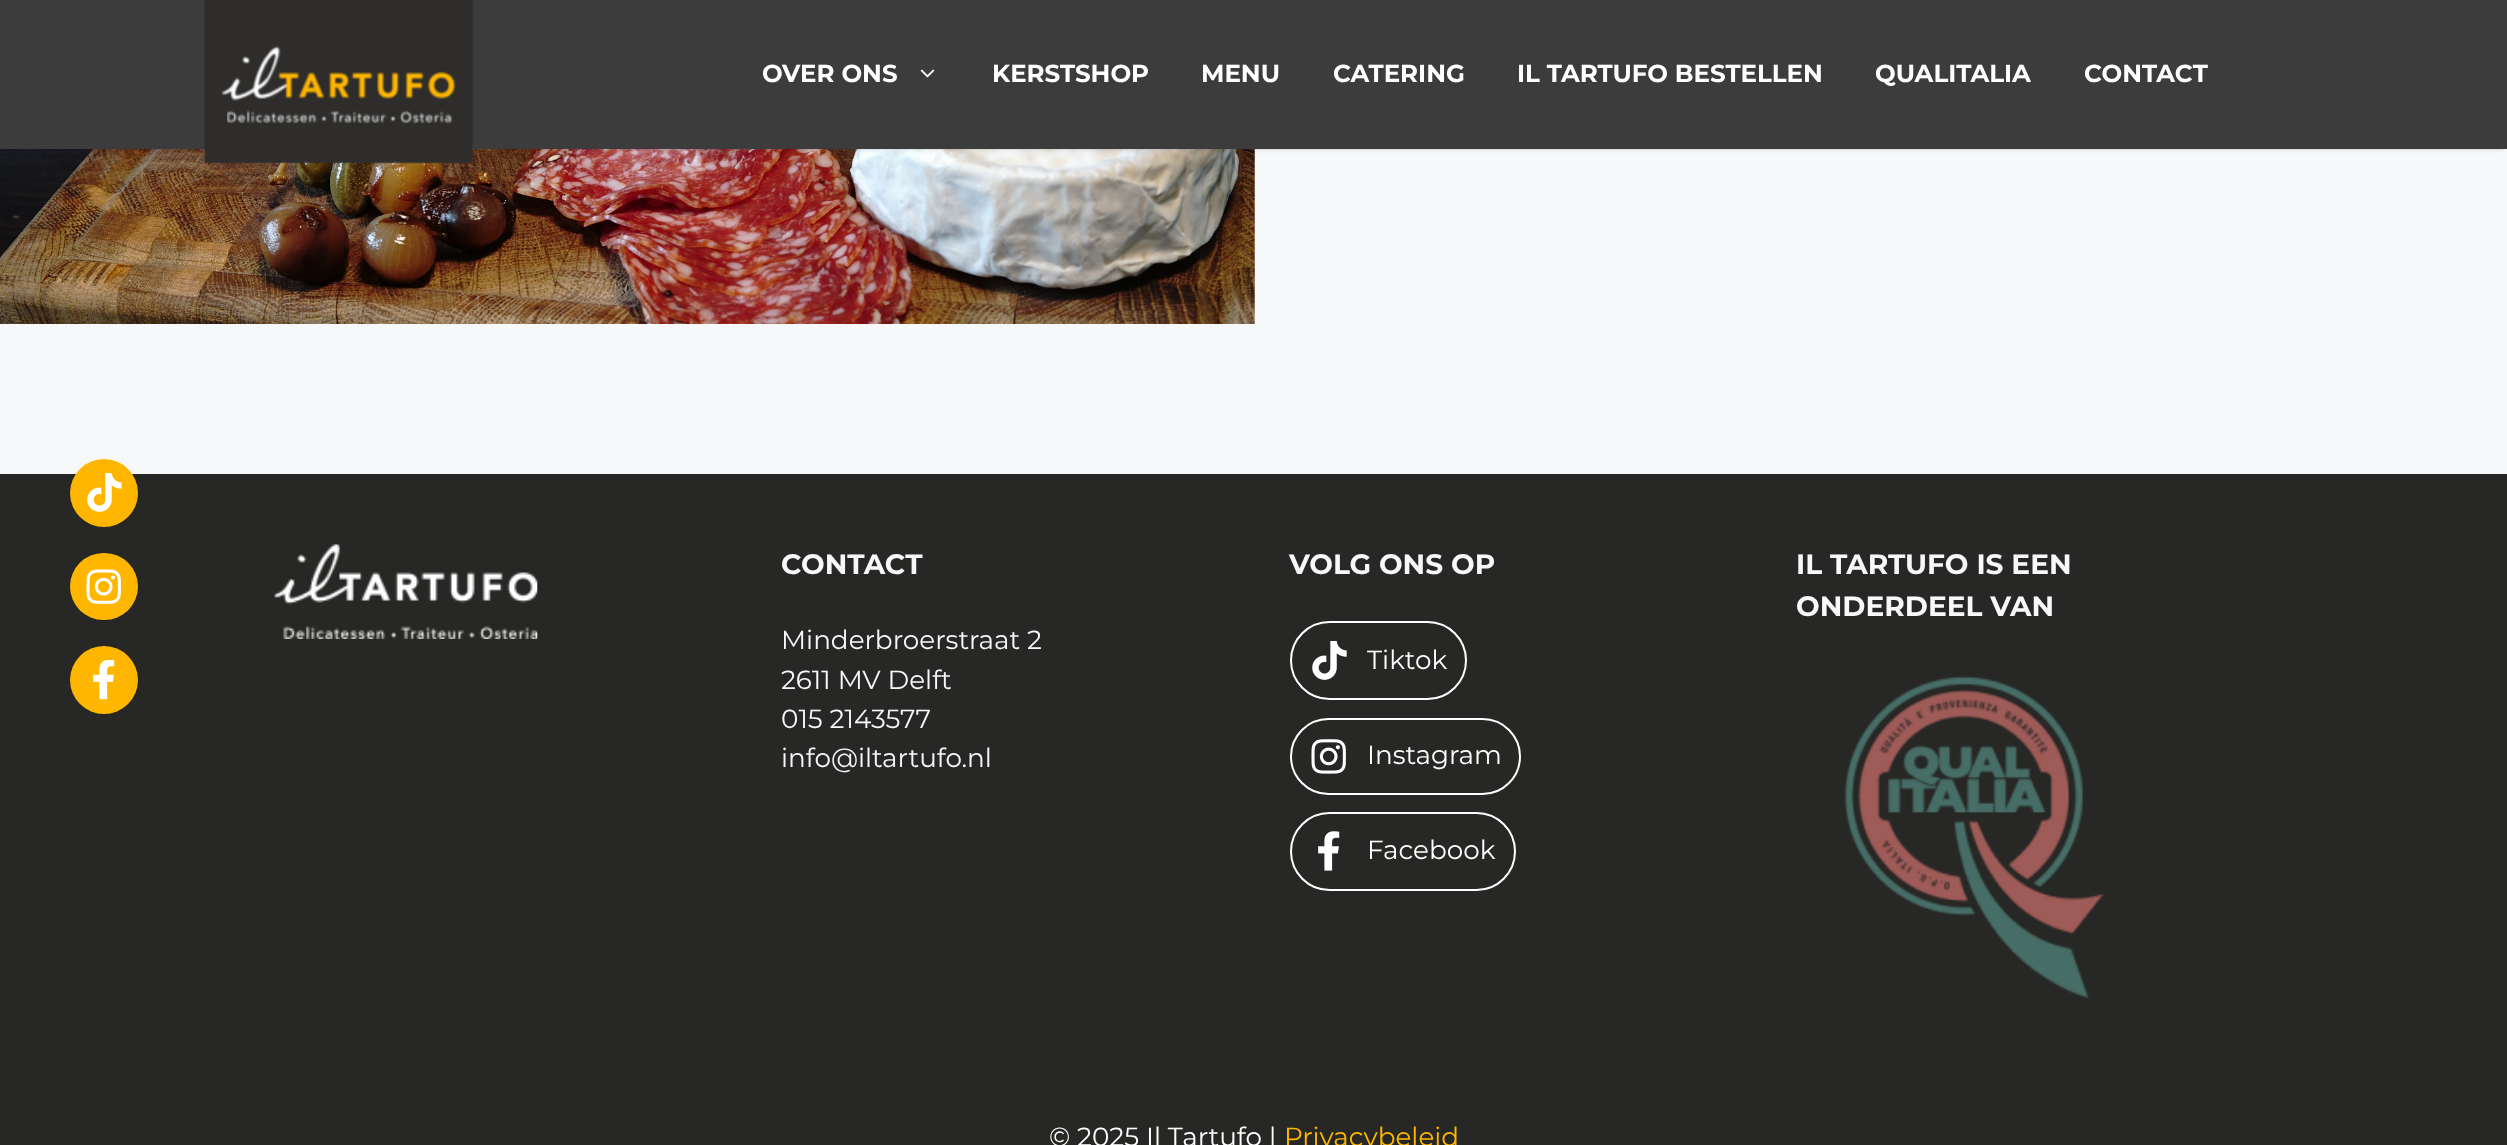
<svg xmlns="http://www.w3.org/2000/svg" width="2507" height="1145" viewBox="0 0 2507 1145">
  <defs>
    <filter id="blur1" x="-50%" y="-200%" width="200%" height="500%"><feGaussianBlur stdDeviation="2"/></filter>
  </defs>
  <rect width="100%" height="100%" fill="#f7f8f9"/>
  <image x="0" y="149" width="1255" height="175" href="img3.png"/>
  <rect x="4" y="7" width="2500" height="142" fill="#000000" fill-opacity="0.2" filter="url(#blur1)"/>
  <rect x="0" y="0" width="2507" height="149" fill="#3c3c3c"/>
  <image x="204" y="0" width="270" height="164" href="img1.png"/>
  <text x="762" y="82" font-family="Montserrat" font-size="24.5" font-weight="bold" fill="#ffffff">OVER ONS</text>
  <image x="920" y="69" width="15" height="9" href="img2.png"/>
  <text x="992" y="82" font-family="Montserrat" font-size="24.5" font-weight="bold" fill="#ffffff">KERSTSHOP</text>
  <text x="1201" y="82" font-family="Montserrat" font-size="24.5" font-weight="bold" fill="#ffffff">MENU</text>
  <text x="1333" y="82" font-family="Montserrat" font-size="24.5" font-weight="bold" fill="#ffffff">CATERING</text>
  <text x="1517" y="82" font-family="Montserrat" font-size="24.5" font-weight="bold" fill="#ffffff">IL TARTUFO BESTELLEN</text>
  <text x="1875" y="82" font-family="Montserrat" font-size="24.5" font-weight="bold" fill="#ffffff">QUALITALIA</text>
  <text x="2084" y="82" font-family="Montserrat" font-size="24.5" font-weight="bold" fill="#ffffff">CONTACT</text>
  <rect x="0" y="474" width="2507" height="671" fill="#272725"/>
  <circle cx="104" cy="493" r="34" fill="#ffb601"/>
  <image x="87" y="473" width="35" height="39" href="img4.png"/>
  <rect x="70" y="553" width="68" height="67" rx="33.5" fill="#ffb601"/>
  <image x="86" y="569" width="35" height="35" href="img5.png"/>
  <circle cx="104" cy="680" r="34" fill="#ffb601"/>
  <image x="93" y="660" width="22" height="40" href="img6.png"/>
  <image x="274" y="544" width="264" height="95" href="img7.png"/>
  <text x="781" y="574" font-family="Montserrat" font-size="28" font-weight="bold" fill="#f7f8f9">CONTACT</text>
  <text x="781" y="649" font-family="Montserrat" font-size="26.25" font-weight="100" fill="#f7f8f9">Minderbroerstraat 2</text>
  <text x="781" y="689" font-family="Montserrat" font-size="26.25" font-weight="100" fill="#f7f8f9">2611 MV Delft</text>
  <text x="781" y="728" font-family="Montserrat" font-size="26.25" font-weight="100" fill="#f7f8f9">015 2143577</text>
  <text x="781" y="767" font-family="Montserrat" font-size="26.25" font-weight="100" fill="#f7f8f9">info@iltartufo.nl</text>
  <text x="1289" y="574" font-family="Montserrat" font-size="28" font-weight="bold" fill="#f7f8f9">VOLG ONS OP</text>
  <rect x="1291" y="622" width="175" height="77" rx="38.5" fill="none" stroke="#ffffff" stroke-width="2"/>
  <image x="1312" y="641" width="35" height="39" href="img8.png"/>
  <text x="1367" y="669" font-family="Montserrat" font-size="26.25" font-weight="100" fill="#ffffff">Tiktok</text>
  <rect x="1291" y="719" width="229" height="75" rx="37.5" fill="none" stroke="#ffffff" stroke-width="2"/>
  <image x="1311" y="739" width="35" height="35" href="img9.png"/>
  <text x="1367" y="764" font-family="Montserrat" font-size="26.25" font-weight="100" fill="#ffffff">Instagram</text>
  <rect x="1291" y="813" width="224" height="77" rx="38.5" fill="none" stroke="#ffffff" stroke-width="2"/>
  <image x="1318" y="831" width="22" height="40" href="img10.png"/>
  <text x="1367" y="859" font-family="Montserrat" font-size="26.25" font-weight="100" fill="#ffffff">Facebook</text>
  <text x="1796" y="574" font-family="Montserrat" font-size="28" font-weight="bold" fill="#f7f8f9">IL TARTUFO IS EEN</text>
  <text x="1796" y="616" font-family="Montserrat" font-size="28" font-weight="bold" fill="#f7f8f9">ONDERDEEL VAN</text>
  <image x="1844" y="676" width="260" height="323" href="img11.png"/>
  <text x="1049" y="1146" font-family="Montserrat" font-size="26.25" font-weight="100" fill="#ffffff">© 2025 Il Tartufo |</text>
  <text x="1284" y="1146" font-family="Montserrat" font-size="26.25" font-weight="100" fill="#ffb601">Privacybeleid</text>
</svg>
